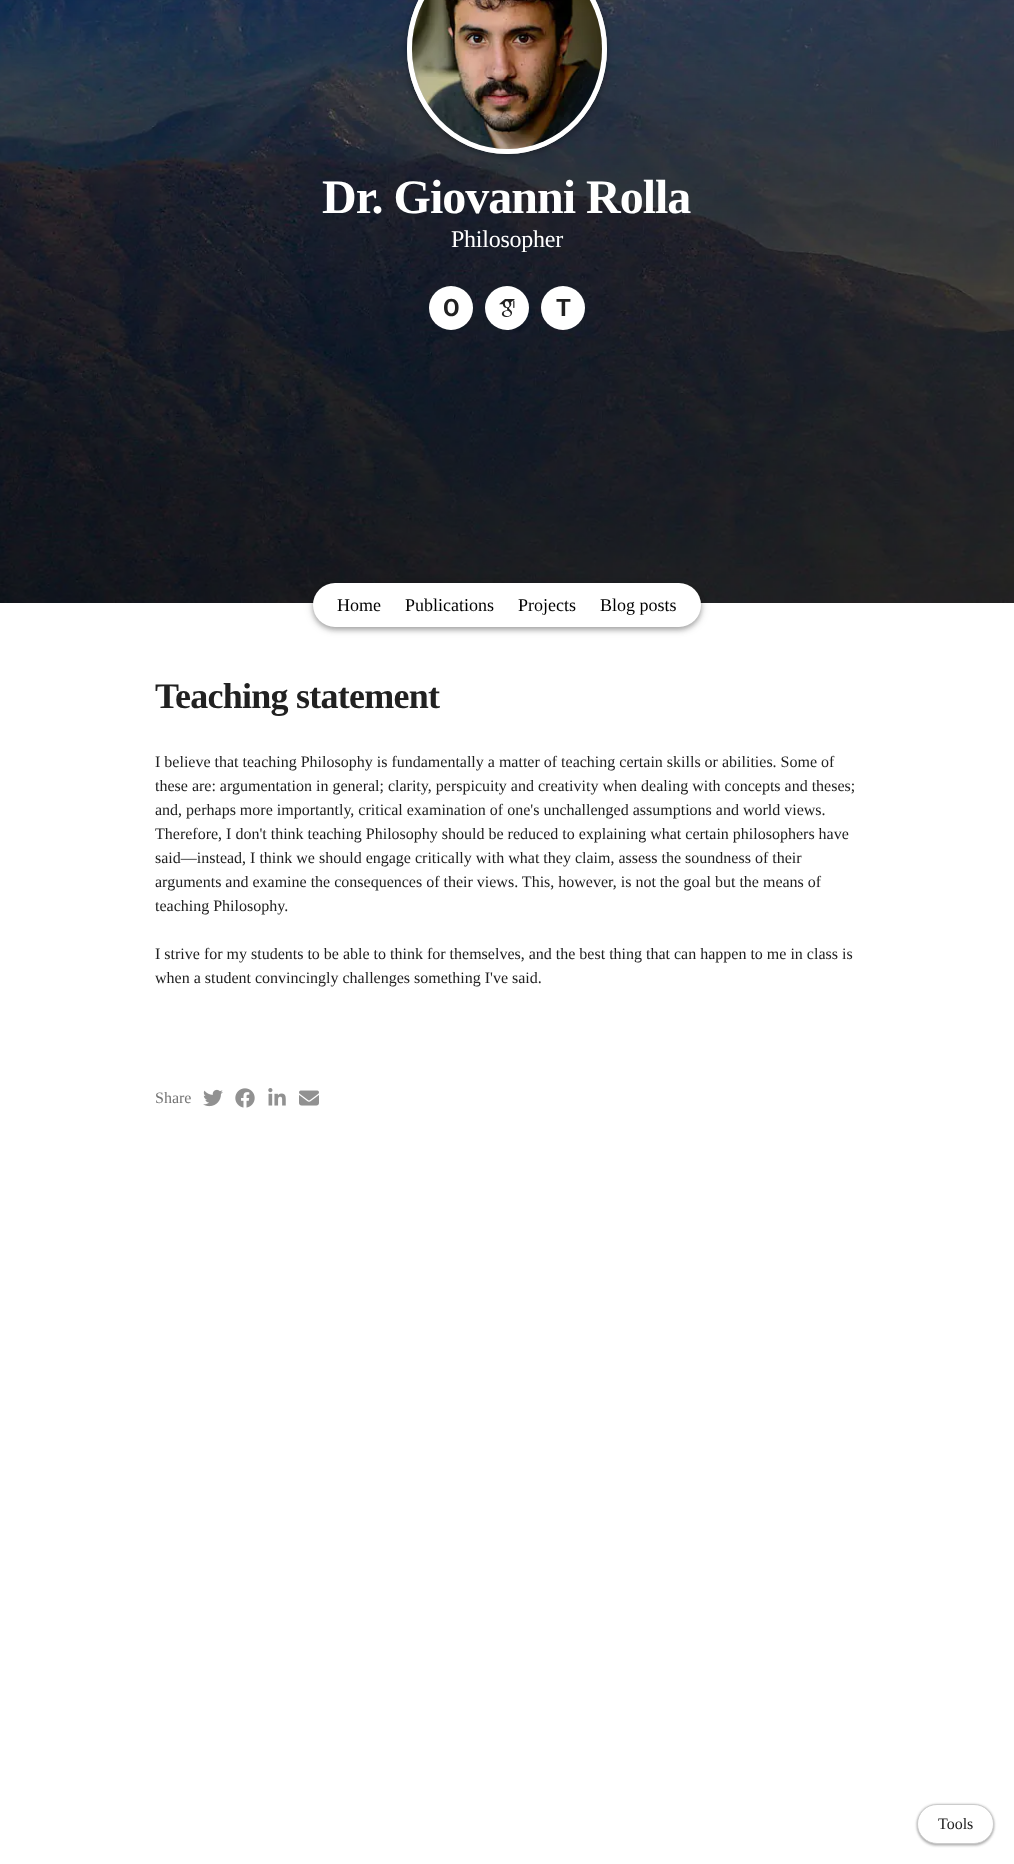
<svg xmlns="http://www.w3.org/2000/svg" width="1014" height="1864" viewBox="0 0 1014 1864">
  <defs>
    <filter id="blur1" x="-50%" y="-200%" width="200%" height="500%"><feGaussianBlur stdDeviation="5"/></filter>
    <filter id="blur2" x="-50%" y="-200%" width="200%" height="500%"><feGaussianBlur stdDeviation="2"/></filter>
    <filter id="blur3" x="-50%" y="-200%" width="200%" height="500%"><feGaussianBlur stdDeviation="2.5"/></filter>
    <filter id="blur4" x="-50%" y="-200%" width="200%" height="500%"><feGaussianBlur stdDeviation="1.5"/></filter>
    <filter id="blur5" x="-50%" y="-200%" width="200%" height="500%"><feGaussianBlur stdDeviation="1"/></filter>
  </defs>
  <rect width="100%" height="100%" fill="#ffffff"/>
  <image x="0" y="0" width="1014" height="603" href="img1.png"/>
  <rect x="407" y="-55" width="200" height="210" rx="100" fill="#000000" fill-opacity="0.2" filter="url(#blur1)"/>
  <rect x="407" y="-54" width="200" height="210" rx="100" fill="#000000" fill-opacity="0.14" filter="url(#blur2)"/>
  <ellipse cx="507" cy="49" rx="100" ry="105" fill="#cccccc"/>
  <path d="M507-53.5C561-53.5 604.5-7.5 604.5 49C604.5 105.5 561 151.5 507 151.5C453 151.5 409.5 105.5 409.5 49C409.5-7.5 453-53.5 507-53.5Z" fill="none" stroke="#ffffff" stroke-width="5"/>
  <image x="412" y="0" width="190" height="149" href="img2.png"/>
  <text x="322" y="213" font-family="Liberation Serif" font-size="48" font-weight="bold" letter-spacing="-1" fill="#ffffff">Dr. Giovanni Rolla</text>
  <text x="451" y="247" font-family="Liberation Serif" font-size="24" letter-spacing="-0.25" fill="#ffffff">Philosopher</text>
  <circle cx="451" cy="308" r="22" fill="#ffffff"/>
  <text x="443" y="316" font-family="Roboto" font-size="24" font-weight="bold" fill="#212121">O</text>
  <circle cx="507" cy="308" r="22" fill="#ffffff"/>
  <image x="499" y="299" width="16" height="18" href="img3.png"/>
  <circle cx="563" cy="308" r="22" fill="#ffffff"/>
  <text x="556" y="316" font-family="Roboto" font-size="24" font-weight="bold" fill="#212121">T</text>
  <rect x="313" y="584" width="388" height="44" rx="22" fill="#000000" fill-opacity="0.2" filter="url(#blur1)"/>
  <rect x="313" y="587" width="388" height="44" rx="22" fill="#000000" fill-opacity="0.12" filter="url(#blur3)"/>
  <rect x="313" y="585" width="388" height="44" rx="22" fill="#000000" fill-opacity="0.14" filter="url(#blur2)"/>
  <rect x="313" y="583" width="388" height="44" rx="22" fill="#ffffff"/>
  <text x="337" y="611" font-family="Liberation Serif" font-size="18" fill="#000000">Home</text>
  <text x="405" y="611" font-family="Liberation Serif" font-size="18" fill="#000000">Publications</text>
  <text x="518" y="611" font-family="Liberation Serif" font-size="18" fill="#000000">Projects</text>
  <text x="600" y="611" font-family="Liberation Serif" font-size="18" fill="#000000">Blog posts</text>
  <text x="155" y="708" font-family="Liberation Serif" font-size="36" font-weight="bold" letter-spacing="-0.75" fill="#212121">Teaching statement</text>
  <text x="155" y="767" font-family="Liberation Serif" font-size="16" fill="#212121">I believe that teaching Philosophy is fundamentally a matter of teaching certain skills or abilities. Some of</text>
  <text x="155" y="791" font-family="Liberation Serif" font-size="16" fill="#212121">these are: argumentation in general; clarity, perspicuity and creativity when dealing with concepts and theses;</text>
  <text x="155" y="815" font-family="Liberation Serif" font-size="16" fill="#212121">and, perhaps more importantly, critical examination of one's unchallenged assumptions and world views.</text>
  <text x="155" y="839" font-family="Liberation Serif" font-size="16" fill="#212121">Therefore, I don't think teaching Philosophy should be reduced to explaining what certain philosophers have</text>
  <text x="155" y="863" font-family="Liberation Serif" font-size="16" fill="#212121">said—instead, I think we should engage critically with what they claim, assess the soundness of their</text>
  <text x="155" y="887" font-family="Liberation Serif" font-size="16" fill="#212121">arguments and examine the consequences of their views. This, however, is not the goal but the means of</text>
  <text x="155" y="911" font-family="Liberation Serif" font-size="16" fill="#212121">teaching Philosophy.</text>
  <text x="155" y="959" font-family="Liberation Serif" font-size="16" fill="#212121">I strive for my students to be able to think for themselves, and the best thing that can happen to me in class is</text>
  <text x="155" y="983" font-family="Liberation Serif" font-size="16" fill="#212121">when a student convincingly challenges something I've said.</text>
  <text x="155" y="1103" font-family="Liberation Serif" font-size="16" fill="#757575">Share</text>
  <image x="203" y="1089" width="20" height="18" href="img4.png"/>
  <image x="235" y="1088" width="20" height="20" href="img5.png"/>
  <image x="268" y="1088" width="18" height="18" href="img6.png"/>
  <image x="299" y="1090" width="20" height="16" href="img7.png"/>
  <rect x="917" y="1805" width="77" height="40" rx="20" fill="#000000" fill-opacity="0.2" filter="url(#blur4)"/>
  <rect x="917" y="1806" width="77" height="40" rx="20" fill="#000000" fill-opacity="0.12" filter="url(#blur5)"/>
  <rect x="917" y="1804" width="77" height="40" rx="20" fill="#000000" fill-opacity="0.14" filter="url(#blur5)"/>
  <rect x="917.5" y="1804.5" width="76" height="39" rx="19.5" fill="#ffffff" stroke="#cccccc"/>
  <text x="938" y="1829" font-family="Liberation Serif" font-size="16" fill="#212121">Tools</text>
</svg>
